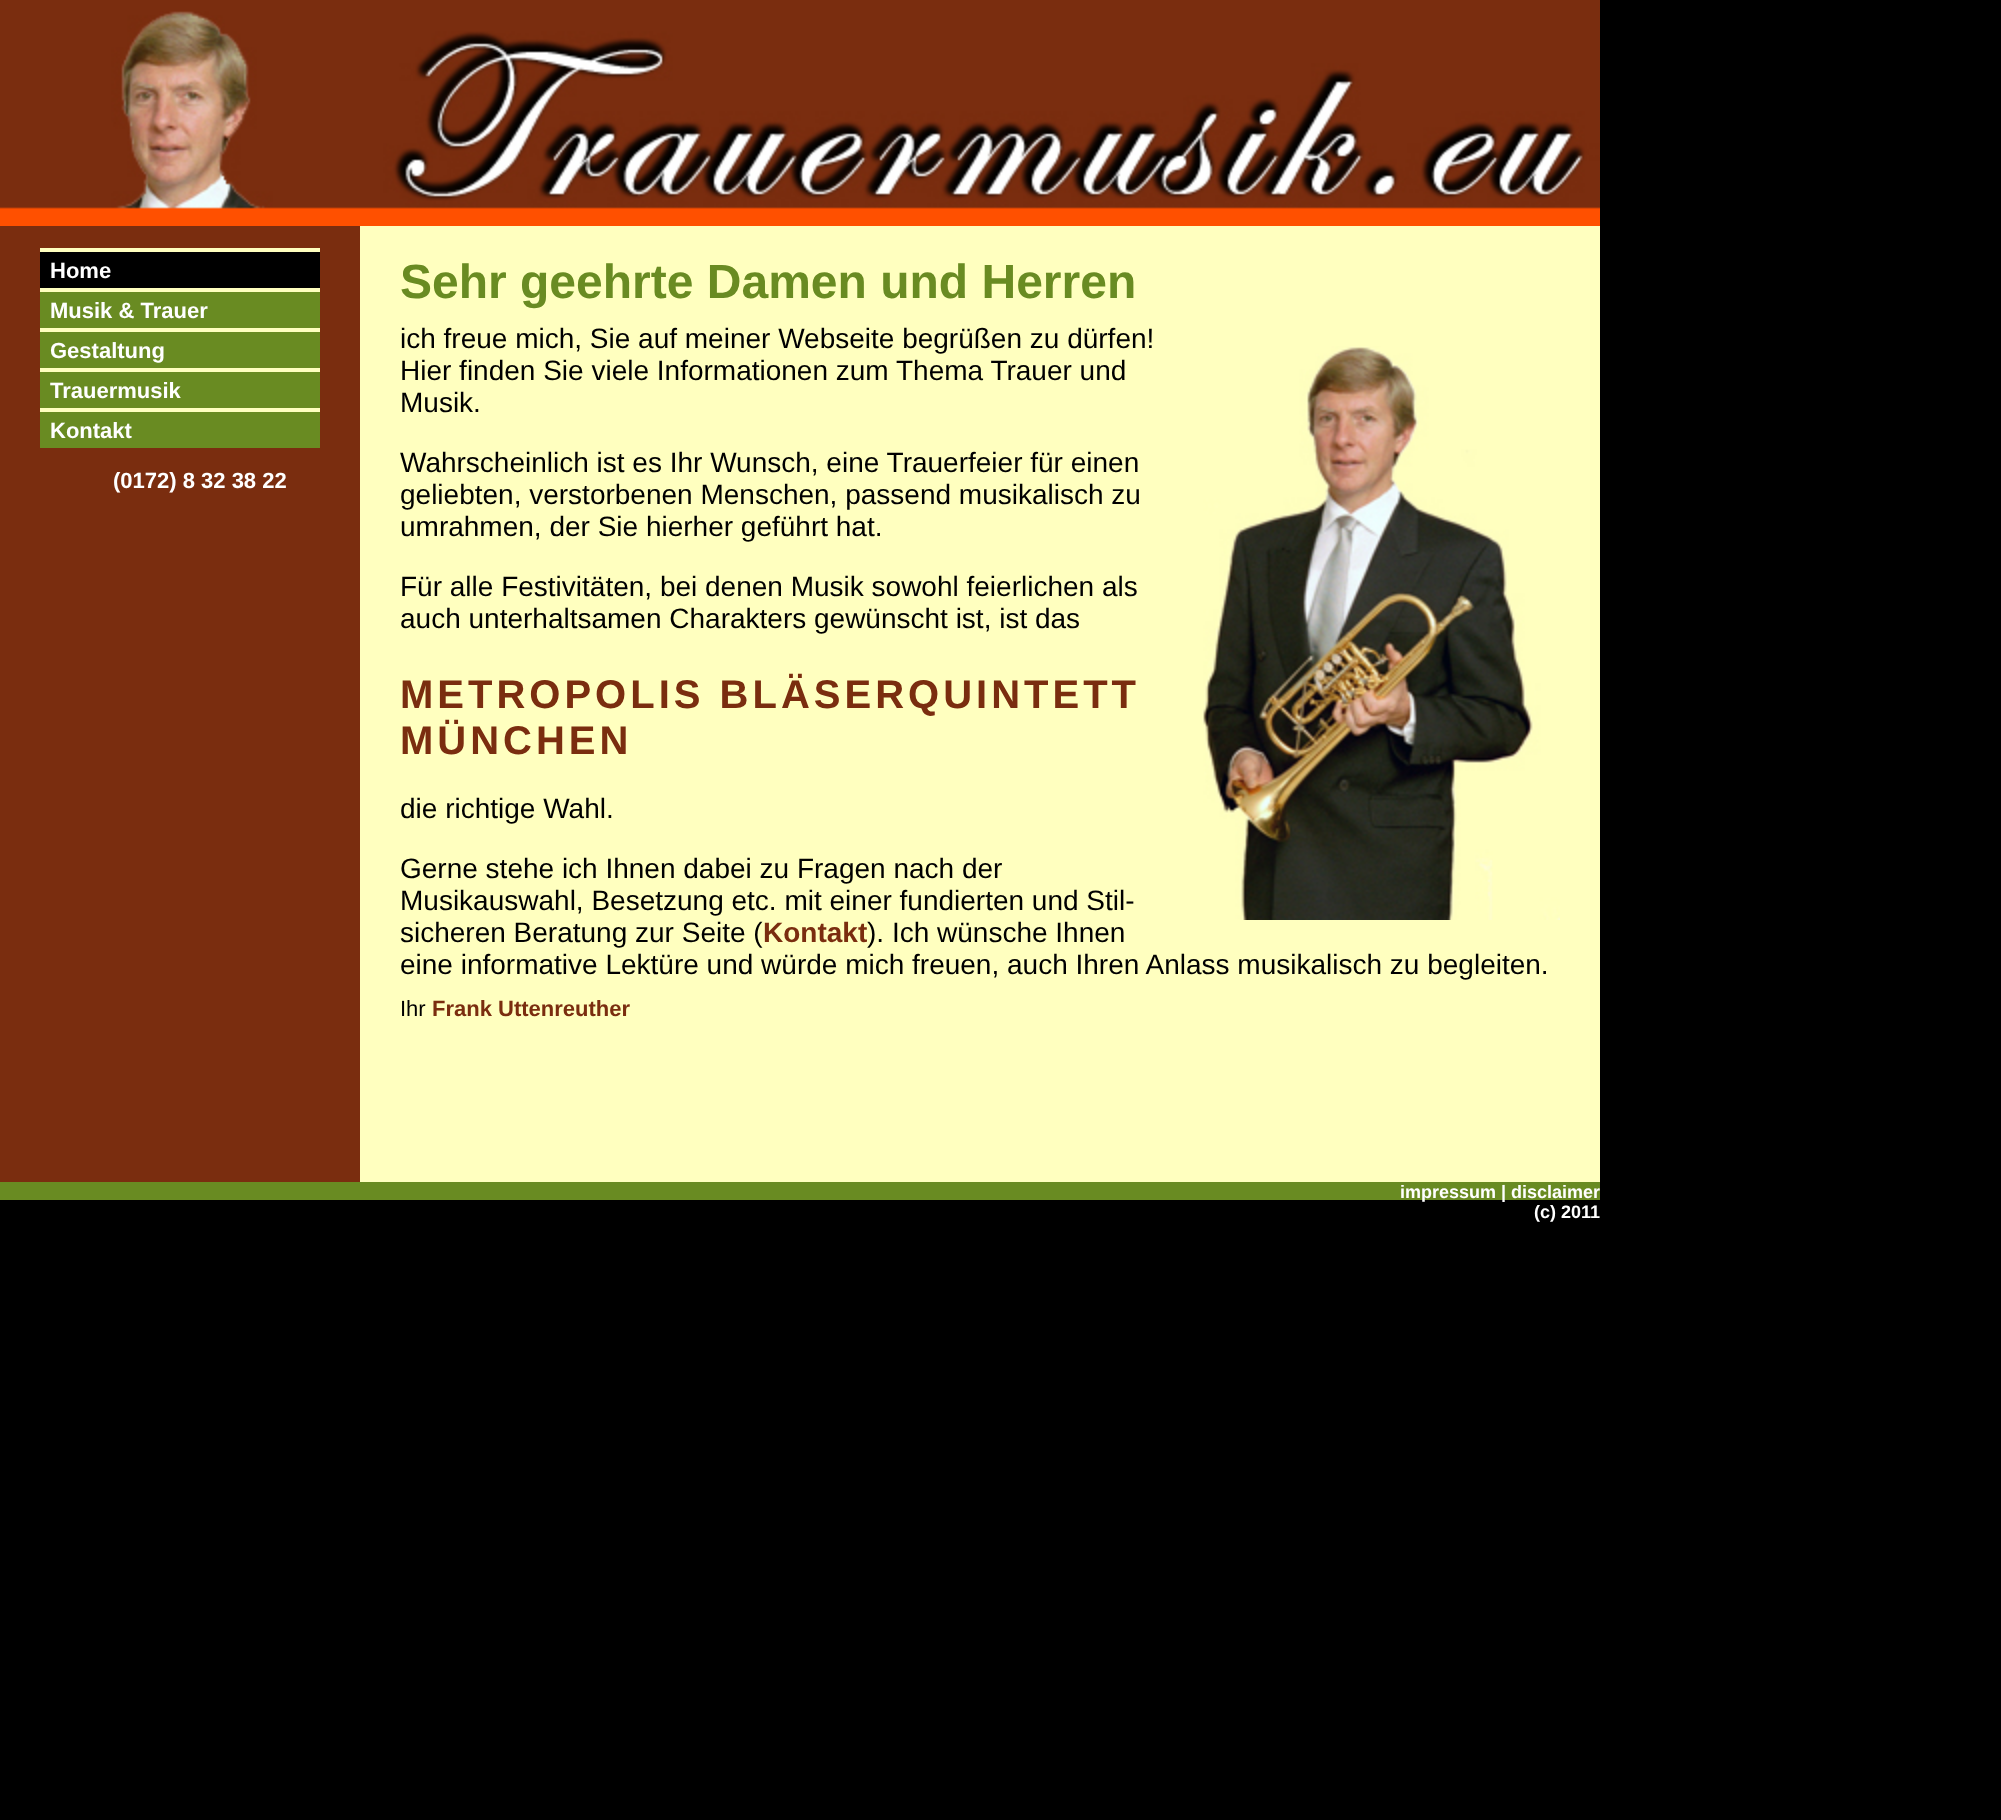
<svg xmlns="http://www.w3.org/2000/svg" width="2001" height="1820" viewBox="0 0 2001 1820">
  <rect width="100%" height="100%" fill="#000000"/>
  <rect x="0" y="0" width="1600" height="11" fill="#7a2d0f"/>
  <image x="0" y="11" width="1600" height="198" href="img1.png"/>
  <rect x="0" y="209" width="1600" height="17" fill="#ff5000"/>
  <rect x="0" y="226" width="360" height="956" fill="#7a2d0f"/>
  <rect x="360" y="226" width="1240" height="956" fill="#ffffbf"/>
  <rect x="40" y="252" width="280" height="36" fill="#000000"/>
  <rect x="40" y="248" width="280" height="4" fill="#ffffbf"/>
  <text x="50" y="278" font-family="Liberation Sans" font-size="22" font-weight="bold" fill="#ffffff">Home</text>
  <rect x="40" y="292" width="280" height="36" fill="#698b22"/>
  <rect x="40" y="288" width="280" height="4" fill="#ffffbf"/>
  <text x="50" y="318" font-family="Liberation Sans" font-size="22" font-weight="bold" fill="#ffffff">Musik &amp; Trauer</text>
  <rect x="40" y="332" width="280" height="36" fill="#698b22"/>
  <rect x="40" y="328" width="280" height="4" fill="#ffffbf"/>
  <text x="50" y="358" font-family="Liberation Sans" font-size="22" font-weight="bold" fill="#ffffff">Gestaltung</text>
  <rect x="40" y="372" width="280" height="36" fill="#698b22"/>
  <rect x="40" y="368" width="280" height="4" fill="#ffffbf"/>
  <text x="50" y="398" font-family="Liberation Sans" font-size="22" font-weight="bold" fill="#ffffff">Trauermusik</text>
  <rect x="40" y="412" width="280" height="36" fill="#698b22"/>
  <rect x="40" y="408" width="280" height="4" fill="#ffffbf"/>
  <text x="50" y="438" font-family="Liberation Sans" font-size="22" font-weight="bold" fill="#ffffff">Kontakt</text>
  <text x="113" y="488" font-family="Liberation Sans" font-size="22" font-weight="bold" fill="#ffffff">(0172) 8 32 38 22</text>
  <text x="400" y="298" font-family="Liberation Sans" font-size="48" font-weight="bold" fill="#698b22">Sehr geehrte Damen und Herren</text>
  <text x="400" y="348" font-family="Liberation Sans" font-size="28" fill="#000000">ich freue mich, Sie auf meiner Webseite begrüßen zu dürfen!</text>
  <text x="400" y="380" font-family="Liberation Sans" font-size="28" fill="#000000">Hier finden Sie viele Informationen zum Thema Trauer und</text>
  <image x="1202" y="346" width="358" height="574" href="img2.png"/>
  <text x="400" y="412" font-family="Liberation Sans" font-size="28" fill="#000000">Musik.</text>
  <text x="400" y="472" font-family="Liberation Sans" font-size="28" fill="#000000">Wahrscheinlich ist es Ihr Wunsch, eine Trauerfeier für einen</text>
  <text x="400" y="504" font-family="Liberation Sans" font-size="28" fill="#000000">geliebten, verstorbenen Menschen, passend musikalisch zu</text>
  <text x="400" y="536" font-family="Liberation Sans" font-size="28" fill="#000000">umrahmen, der Sie hierher geführt hat.</text>
  <text x="400" y="596" font-family="Liberation Sans" font-size="28" fill="#000000">Für alle Festivitäten, bei denen Musik sowohl feierlichen als</text>
  <text x="400" y="628" font-family="Liberation Sans" font-size="28" fill="#000000">auch unterhaltsamen Charakters gewünscht ist, ist das</text>
  <text x="400" y="708" font-family="Liberation Sans" font-size="40" font-weight="bold" letter-spacing="4" fill="#7a2d0f">METROPOLIS BLÄSERQUINTETT</text>
  <text x="400" y="754" font-family="Liberation Sans" font-size="40" font-weight="bold" letter-spacing="4" fill="#7a2d0f">MÜNCHEN</text>
  <text x="400" y="818" font-family="Liberation Sans" font-size="28" fill="#000000">die richtige Wahl.</text>
  <text x="400" y="878" font-family="Liberation Sans" font-size="28" fill="#000000">Gerne stehe ich Ihnen dabei zu Fragen nach der</text>
  <text x="400" y="910" font-family="Liberation Sans" font-size="28" fill="#000000">Musikauswahl, Besetzung etc. mit einer fundierten und Stil-</text>
  <text x="400" y="942" font-family="Liberation Sans" font-size="28" fill="#000000">sicheren Beratung zur Seite (</text>
  <text x="763" y="942" font-family="Liberation Sans" font-size="28" font-weight="bold" fill="#7a2d0f">Kontakt</text>
  <text x="867" y="942" font-family="Liberation Sans" font-size="28" fill="#000000">). Ich wünsche Ihnen</text>
  <text x="400" y="974" font-family="Liberation Sans" font-size="28" fill="#000000">eine informative Lektüre und würde mich freuen, auch Ihren Anlass musikalisch zu begleiten.</text>
  <text x="400" y="1016" font-family="Liberation Sans" font-size="22" fill="#000000">Ihr</text>
  <text x="432" y="1016" font-family="Liberation Sans" font-size="22" font-weight="bold" fill="#7a2d0f">Frank Uttenreuther</text>
  <rect x="0" y="1182" width="1600" height="18" fill="#698b22"/>
  <text x="1400" y="1198" font-family="Liberation Sans" font-size="18" font-weight="bold" fill="#ffffff">impressum | disclaimer</text>
  <text x="1534" y="1218" font-family="Liberation Sans" font-size="18" font-weight="bold" fill="#ffffff">(c) 2011</text>
</svg>
